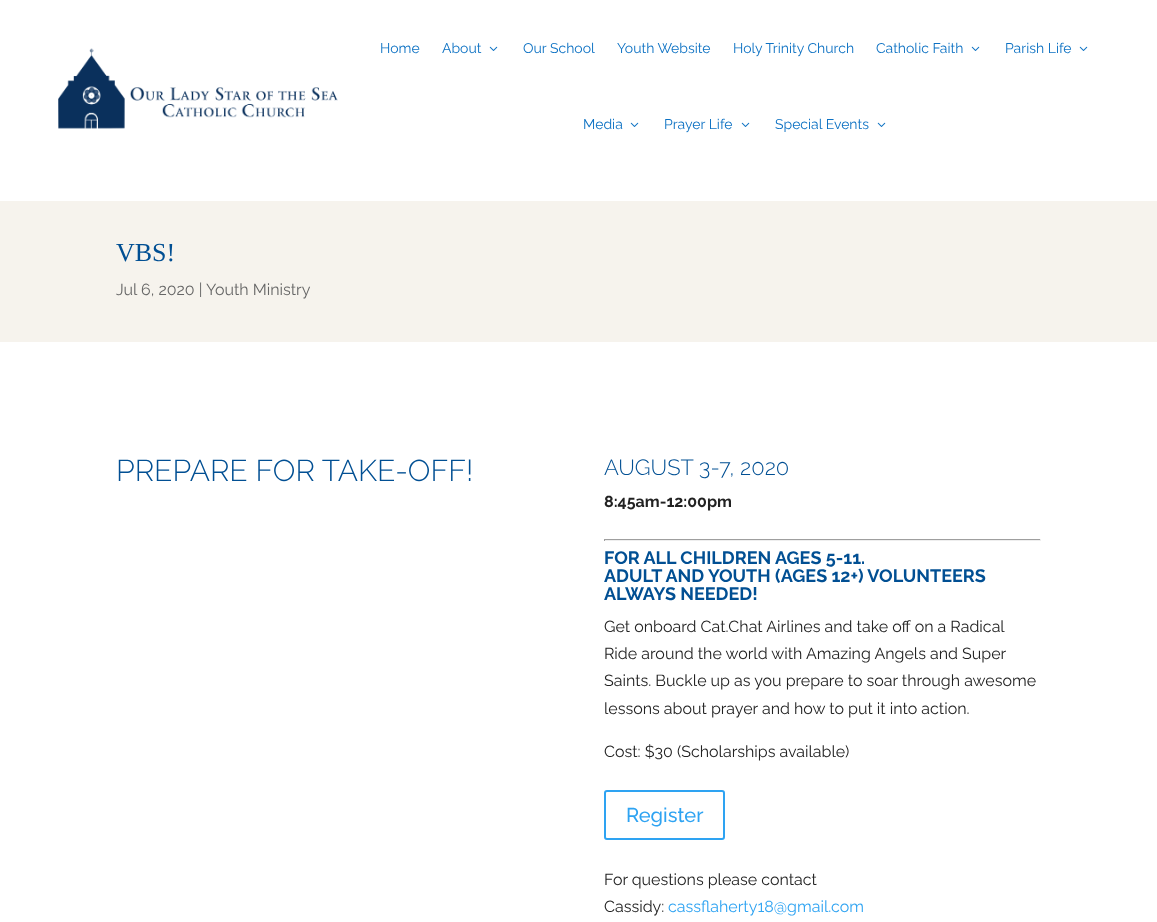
<svg xmlns="http://www.w3.org/2000/svg" width="1157" height="922" viewBox="0 0 1157 922">
  <rect width="100%" height="100%" fill="#ffffff"/>
  <image x="58" y="48" width="280" height="81" href="img1.png"/>
  <text x="380" y="53" font-family="Raleway" font-size="14" fill="#0c71c3">Home</text>
  <text x="442" y="53" font-family="Raleway" font-size="14" fill="#0c71c3">About</text>
  <image x="489" y="46" width="9" height="5" href="img2.png"/>
  <text x="523" y="53" font-family="Raleway" font-size="14" fill="#0c71c3">Our School</text>
  <text x="617" y="53" font-family="Raleway" font-size="14" fill="#0c71c3">Youth Website</text>
  <text x="733" y="53" font-family="Raleway" font-size="14" fill="#0c71c3">Holy Trinity Church</text>
  <text x="876" y="53" font-family="Raleway" font-size="14" fill="#0c71c3">Catholic Faith</text>
  <image x="971" y="46" width="9" height="5" href="img2.png"/>
  <text x="1005" y="53" font-family="Raleway" font-size="14" fill="#0c71c3">Parish Life</text>
  <image x="1079" y="46" width="9" height="5" href="img2.png"/>
  <text x="583" y="129" font-family="Raleway" font-size="14" fill="#0c71c3">Media</text>
  <image x="630" y="122" width="9" height="5" href="img2.png"/>
  <text x="664" y="129" font-family="Raleway" font-size="14" fill="#0c71c3">Prayer Life</text>
  <image x="741" y="122" width="9" height="5" href="img2.png"/>
  <text x="775" y="129" font-family="Raleway" font-size="14" fill="#0c71c3">Special Events</text>
  <image x="877" y="122" width="9" height="5" href="img2.png"/>
  <rect x="0" y="201" width="1157" height="141" fill="#f6f3ed"/>
  <text x="116" y="261" font-family="Liberation Serif" font-size="26" fill="#014f93">VBS!</text>
  <text x="116" y="295" font-family="Raleway" font-size="16" fill="#666666">Jul 6, 2020 | Youth Ministry</text>
  <text x="116" y="481" font-family="Raleway" font-size="30" font-weight="300" fill="#014f93">PREPARE FOR TAKE-OFF!</text>
  <text x="604" y="475" font-family="Raleway" font-size="22" font-weight="300" fill="#014f93">AUGUST 3-7, 2020</text>
  <text x="604" y="507" font-family="Raleway" font-size="16" font-weight="bold" fill="#222222">8:45am-12:00pm</text>
  <rect x="604" y="539" width="437" height="1" fill="#9f9f9f"/>
  <rect x="1040" y="539" width="1" height="2" fill="#eeeeee"/>
  <rect x="604" y="540" width="437" height="1" fill="#eeeeee"/>
  <rect x="604" y="539" width="1" height="2" fill="#9f9f9f"/>
  <text x="604" y="564" font-family="Raleway" font-size="18" font-weight="bold" fill="#014f93">FOR ALL CHILDREN AGES 5-11.</text>
  <text x="604" y="582" font-family="Raleway" font-size="18" font-weight="bold" fill="#014f93">ADULT AND YOUTH (AGES 12+) VOLUNTEERS</text>
  <text x="604" y="600" font-family="Raleway" font-size="18" font-weight="bold" fill="#014f93">ALWAYS NEEDED!</text>
  <text x="604" y="632" font-family="Raleway" font-size="16" fill="#222222">Get onboard Cat.Chat Airlines and take off on a Radical</text>
  <text x="604" y="659" font-family="Raleway" font-size="16" fill="#222222">Ride around the world with Amazing Angels and Super</text>
  <text x="604" y="686" font-family="Raleway" font-size="16" fill="#222222">Saints. Buckle up as you prepare to soar through awesome</text>
  <text x="604" y="714" font-family="Raleway" font-size="16" fill="#222222">lessons about prayer and how to put it into action.</text>
  <text x="604" y="757" font-family="Raleway" font-size="16" fill="#222222">Cost: $30 (Scholarships available)</text>
  <rect x="605" y="791" width="119" height="48" rx="2" fill="none" stroke="#2ea3f2" stroke-width="2"/>
  <text x="626" y="822" font-family="Raleway" font-size="20" font-weight="500" fill="#2ea3f2">Register</text>
  <text x="604" y="885" font-family="Raleway" font-size="16" fill="#222222">For questions please contact</text>
  <text x="604" y="912" font-family="Raleway" font-size="16" fill="#222222">Cassidy:</text>
  <text x="668" y="912" font-family="Raleway" font-size="16" fill="#2ea3f2">cassflaherty18@gmail.com</text>
</svg>
